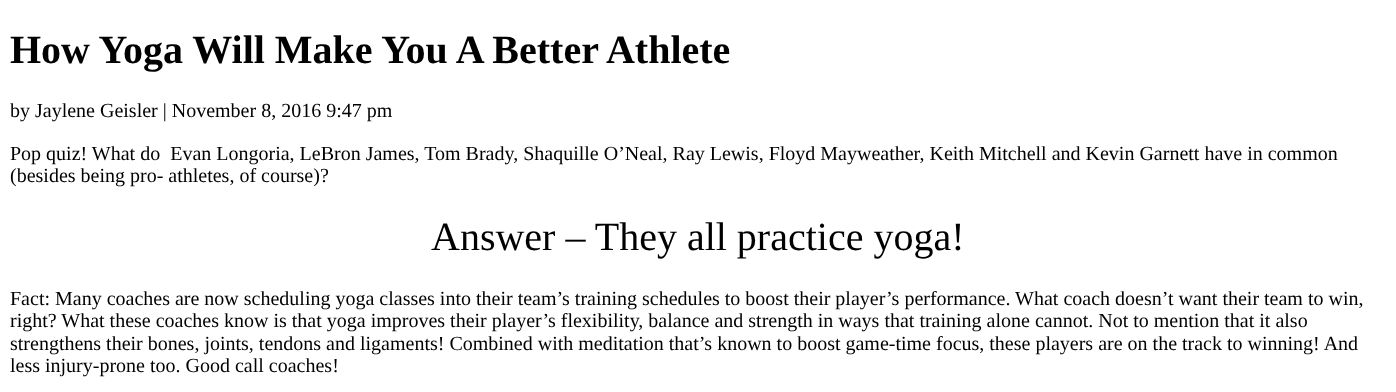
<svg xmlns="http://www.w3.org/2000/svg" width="1396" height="392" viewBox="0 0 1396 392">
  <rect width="100%" height="100%" fill="#ffffff"/>
  <text x="10" y="63" font-family="Liberation Serif" font-size="40" font-weight="bold" fill="#000000">How Yoga Will Make You A Better Athlete</text>
  <text x="10" y="117" font-family="Liberation Serif" font-size="20" fill="#000000">by Jaylene Geisler | November 8, 2016 9:47 pm</text>
  <text x="10" y="160" font-family="Liberation Serif" font-size="20" fill="#000000" xml:space="preserve">Pop quiz! What do  Evan Longoria, LeBron James, Tom Brady, Shaquille O’Neal, Ray Lewis, Floyd Mayweather, Keith Mitchell and Kevin Garnett have in common</text>
  <text x="10" y="182" font-family="Liberation Serif" font-size="20" fill="#000000">(besides being pro- athletes, of course)?</text>
  <text x="431" y="250" font-family="Liberation Serif" font-size="40" fill="#000000">Answer – They all practice yoga!</text>
  <text x="10" y="305" font-family="Liberation Serif" font-size="20" fill="#000000">Fact: Many coaches are now scheduling yoga classes into their team’s training schedules to boost their player’s performance. What coach doesn’t want their team to win,</text>
  <text x="10" y="327" font-family="Liberation Serif" font-size="20" fill="#000000">right? What these coaches know is that yoga improves their player’s flexibility, balance and strength in ways that training alone cannot. Not to mention that it also</text>
  <text x="10" y="350" font-family="Liberation Serif" font-size="20" fill="#000000">strengthens their bones, joints, tendons and ligaments! Combined with meditation that’s known to boost game-time focus, these players are on the track to winning! And</text>
  <text x="10" y="372" font-family="Liberation Serif" font-size="20" fill="#000000">less injury-prone too. Good call coaches!</text>
</svg>
